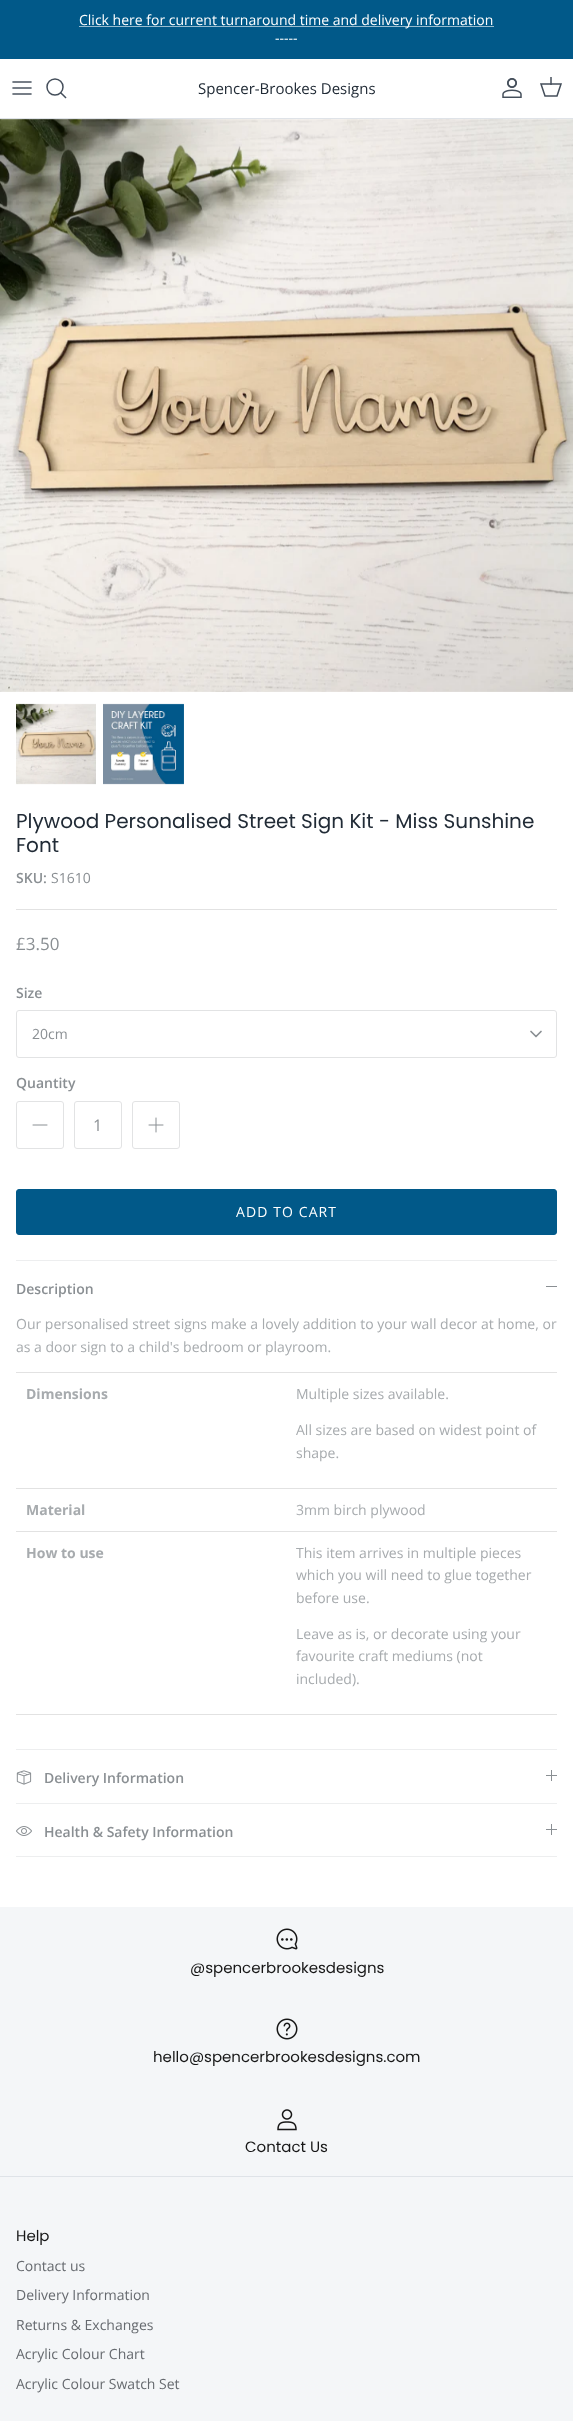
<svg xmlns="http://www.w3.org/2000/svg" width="573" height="2421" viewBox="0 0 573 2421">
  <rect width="100%" height="100%" fill="#ffffff"/>
  <rect x="0" y="0" width="573" height="59" fill="#015989"/>
  <rect x="79" y="26" width="415" height="1" fill="#99bdd0"/>
  <text x="79" y="25" font-family="Open Sans" font-size="14" fill="#ffffff">Click here for current turnaround time and delivery information</text>
  <text x="275" y="43" font-family="Open Sans" font-size="14" fill="#ffffff">-----</text>
  <rect x="0" y="118" width="573" height="1" fill="#dfe3e8"/>
  <image x="12" y="81" width="20" height="14" href="img1.png"/>
  <circle cx="55" cy="87" r="8" fill="none" stroke="#454f5b" stroke-width="1.5"/>
  <path d="M61 93L65.5 97.5" fill="none" stroke="#454f5b" stroke-width="1.5" stroke-linecap="square"/>
  <text x="198" y="94" font-family="Open Sans" font-size="15" fill="#212b36">Spencer-Brookes Designs</text>
  <image x="502" y="78" width="20" height="20" href="img2.png"/>
  <path d="M541 84H561L557 96H545Z" fill="none" stroke="#454f5b" stroke-width="1.5"/>
  <rect x="550" y="77" width="2" height="8" fill="#454f5b" fill-opacity="0.75"/>
  <image x="0" y="119" width="573" height="573" href="img3.png"/>
  <image x="16" y="703" width="80" height="82" href="img4.png"/>
  <image x="103" y="703" width="81" height="82" href="img5.png"/>
  <text x="16" y="828" font-family="Poppins" font-size="20" fill="#212b36">Plywood Personalised Street Sign Kit - Miss Sunshine</text>
  <text x="16" y="852" font-family="Poppins" font-size="20" fill="#212b36">Font</text>
  <text x="16" y="883" font-family="Open Sans" font-size="14" font-weight="600" fill="#8a8f93">SKU:</text>
  <text x="51" y="883" font-family="Open Sans" font-size="14" fill="#8a8f93">S1610</text>
  <rect x="16" y="909" width="541" height="1" fill="#e2e2e2"/>
  <text x="16" y="950" font-family="Open Sans" font-size="17" fill="#8a8f93">£3.50</text>
  <text x="16" y="998" font-family="Open Sans" font-size="14" font-weight="600" fill="#8a8f93">Size</text>
  <rect x="16.5" y="1010.5" width="540" height="47" rx="2.5" fill="none" stroke="#e2e3e4"/>
  <text x="32" y="1039" font-family="Open Sans" font-size="14" fill="#8a8f93">20cm</text>
  <path d="M531 1031.5L536 1036.5L541 1031.5" fill="none" stroke="#8a8f93" stroke-width="1.7" stroke-linecap="round" stroke-linejoin="round"/>
  <text x="16" y="1088" font-family="Open Sans" font-size="14" font-weight="600" fill="#8a8f93">Quantity</text>
  <rect x="16.5" y="1101.5" width="47" height="47" rx="2.5" fill="none" stroke="#e2e3e4"/>
  <path d="M33 1125H47" fill="none" stroke="#8a8f93" stroke-linecap="round" stroke-linejoin="round"/>
  <rect x="74.5" y="1101.5" width="47" height="47" rx="2.5" fill="none" stroke="#e2e3e4"/>
  <text x="93" y="1131" font-family="Open Sans" font-size="16" fill="#8a8f93">1</text>
  <rect x="132.5" y="1101.5" width="47" height="47" rx="2.5" fill="none" stroke="#e2e3e4"/>
  <path d="M156 1118V1132M149 1125H163" fill="none" stroke="#8a8f93" stroke-linecap="round" stroke-linejoin="round"/>
  <rect x="16.5" y="1189.5" width="540" height="45" rx="2.5" fill="#015989" stroke="#015989"/>
  <text x="236" y="1217" font-family="Open Sans" font-size="14" letter-spacing="1.1" fill="#ffffff">ADD TO CART</text>
  <rect x="16" y="1260" width="541" height="1" fill="#edeeef"/>
  <rect x="16" y="1749" width="541" height="1" fill="#edeeef"/>
  <text x="16" y="1294" font-family="Open Sans" font-size="14" font-weight="600" fill="#8a8f93">Description</text>
  <rect x="546" y="1286" width="11" height="1" fill="#8a8f93"/>
  <text x="16" y="1329" font-family="Open Sans" font-size="14" fill="#a7abae">Our personalised street signs make a lovely addition to your wall decor at home, or</text>
  <text x="16" y="1352" font-family="Open Sans" font-size="14" fill="#a7abae">as a door sign to a child's bedroom or playroom.</text>
  <text x="26" y="1399" font-family="Open Sans" font-size="14" font-weight="bold" fill="#a7abae">Dimensions</text>
  <rect x="16" y="1372" width="541" height="1" fill="#e2e2e2"/>
  <text x="296" y="1399" font-family="Open Sans" font-size="14" fill="#a7abae">Multiple sizes available.</text>
  <text x="296" y="1435" font-family="Open Sans" font-size="14" fill="#a7abae">All sizes are based on widest point of</text>
  <text x="296" y="1458" font-family="Open Sans" font-size="14" fill="#a7abae">shape.</text>
  <text x="26" y="1515" font-family="Open Sans" font-size="14" font-weight="bold" fill="#a7abae">Material</text>
  <rect x="16" y="1488" width="541" height="1" fill="#e2e2e2"/>
  <text x="296" y="1515" font-family="Open Sans" font-size="14" fill="#a7abae">3mm birch plywood</text>
  <text x="26" y="1558" font-family="Open Sans" font-size="14" font-weight="bold" fill="#a7abae">How to use</text>
  <rect x="16" y="1531" width="541" height="1" fill="#e2e2e2"/>
  <rect x="16" y="1714" width="541" height="1" fill="#e2e2e2"/>
  <text x="296" y="1558" font-family="Open Sans" font-size="14" fill="#a7abae">This item arrives in multiple pieces</text>
  <text x="296" y="1580" font-family="Open Sans" font-size="14" fill="#a7abae">which you will need to glue together</text>
  <text x="296" y="1603" font-family="Open Sans" font-size="14" fill="#a7abae">before use.</text>
  <text x="296" y="1639" font-family="Open Sans" font-size="14" fill="#a7abae">Leave as is, or decorate using your</text>
  <text x="296" y="1661" font-family="Open Sans" font-size="14" fill="#a7abae">favourite craft mediums (not</text>
  <text x="296" y="1684" font-family="Open Sans" font-size="14" fill="#a7abae">included).</text>
  <rect x="16" y="1803" width="541" height="1" fill="#edeeef"/>
  <image x="16" y="1770" width="16" height="15" href="img6.png"/>
  <text x="44" y="1783" font-family="Open Sans" font-size="14" font-weight="600" fill="#8a8f93">Delivery Information</text>
  <rect x="551" y="1770" width="1" height="11" fill="#8a8f93"/>
  <rect x="546" y="1775" width="11" height="1" fill="#8a8f93"/>
  <rect x="16" y="1856" width="541" height="1" fill="#edeeef"/>
  <image x="16" y="1826" width="16" height="10" href="img7.png"/>
  <text x="44" y="1837" font-family="Open Sans" font-size="14" font-weight="600" fill="#8a8f93">Health &amp; Safety Information</text>
  <rect x="551" y="1824" width="1" height="11" fill="#8a8f93"/>
  <rect x="546" y="1829" width="11" height="1" fill="#8a8f93"/>
  <rect x="0" y="1907" width="573" height="514" fill="#f4f6f8"/>
  <image x="276" y="1928" width="22" height="22" href="img8.png"/>
  <text x="190" y="1973" font-family="Poppins" font-size="15" fill="#171717">@spencerbrookesdesigns</text>
  <image x="276" y="2018" width="22" height="22" href="img9.png"/>
  <text x="153" y="2062" font-family="Poppins" font-size="15" fill="#171717">hello@spencerbrookesdesigns.com</text>
  <image x="277" y="2109" width="20" height="22" href="img10.png"/>
  <text x="245" y="2152" font-family="Poppins" font-size="15" fill="#171717">Contact Us</text>
  <rect x="0" y="2176" width="573" height="1" fill="#dfe3e8"/>
  <text x="16" y="2241" font-family="Poppins" font-size="15" fill="#171717">Help</text>
  <text x="16" y="2271" font-family="Open Sans" font-size="14" fill="#666a6f">Contact us</text>
  <text x="16" y="2300" font-family="Open Sans" font-size="14" fill="#666a6f">Delivery Information</text>
  <text x="16" y="2330" font-family="Open Sans" font-size="14" fill="#666a6f">Returns &amp; Exchanges</text>
  <text x="16" y="2359" font-family="Open Sans" font-size="14" fill="#666a6f">Acrylic Colour Chart</text>
  <text x="16" y="2389" font-family="Open Sans" font-size="14" fill="#666a6f">Acrylic Colour Swatch Set</text>
</svg>
